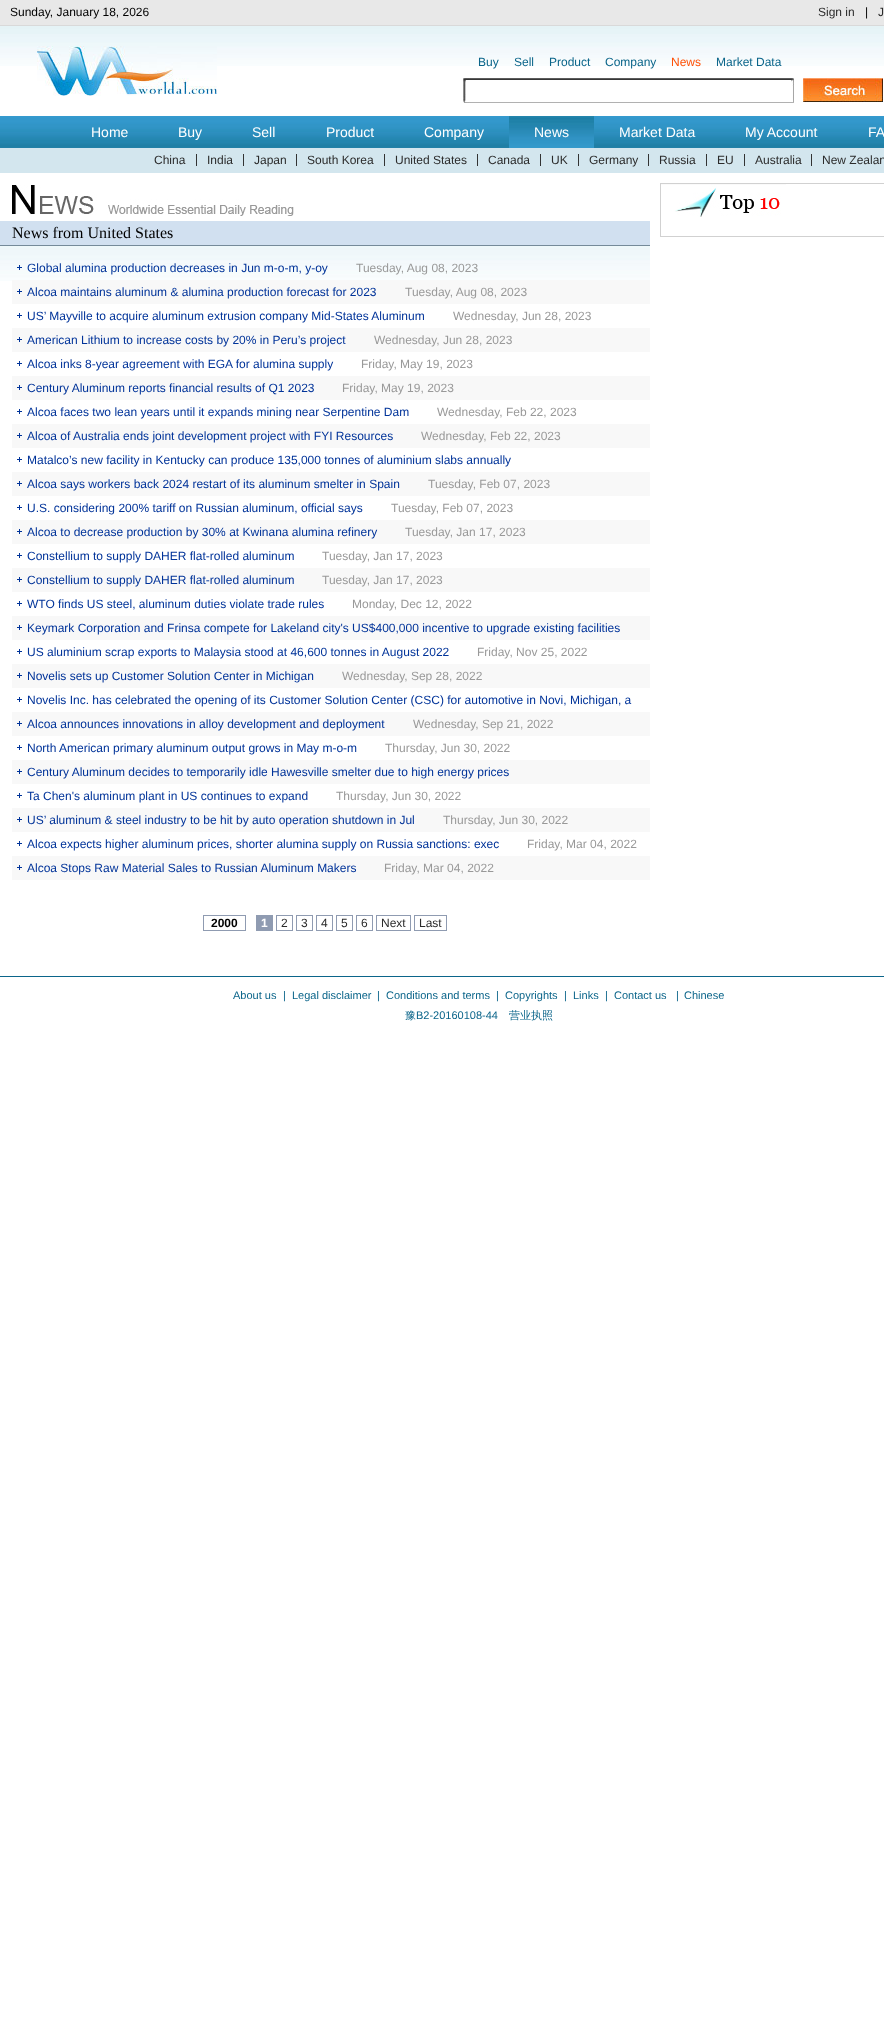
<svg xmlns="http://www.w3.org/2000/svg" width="884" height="2039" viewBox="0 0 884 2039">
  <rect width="100%" height="100%" fill="#ffffff"/>
  <rect x="0" y="0" width="884" height="25" fill="#e8e8e8"/>
  <rect x="0" y="25" width="884" height="1" fill="#d9d9d9"/>
  <text x="10" y="16" font-family="Liberation Sans" font-size="12" fill="#000000">Sunday, January 18, 2026</text>
  <text x="818" y="16" font-family="Liberation Sans" font-size="12" fill="#2b2b2b">Sign in</text>
  <text x="865" y="16" font-family="Liberation Sans" font-size="12" fill="#000000">|</text>
  <text x="878" y="16" font-family="Liberation Sans" font-size="12" fill="#2b2b2b">J</text>
  <image x="0" y="26" width="884" height="40" href="img1.png"/>
  <image x="37" y="46" width="180" height="50" href="img2.png"/>
  <text x="478" y="66" font-family="Liberation Sans" font-size="12" fill="#0b658a">Buy</text>
  <text x="514" y="66" font-family="Liberation Sans" font-size="12" fill="#0b658a">Sell</text>
  <text x="549" y="66" font-family="Liberation Sans" font-size="12" fill="#0b658a">Product</text>
  <text x="605" y="66" font-family="Liberation Sans" font-size="12" fill="#0b658a">Company</text>
  <text x="671" y="66" font-family="Liberation Sans" font-size="12" fill="#ff5006">News</text>
  <text x="716" y="66" font-family="Liberation Sans" font-size="12" fill="#0b658a">Market Data</text>
  <image x="463" y="78" width="331" height="25" href="img3.png"/>
  <rect x="466" y="80" width="325" height="21" fill="#ffffff"/>
  <image x="803" y="78" width="80" height="24" href="img4.png"/>
  <image x="0" y="116" width="884" height="32" href="img5.png"/>
  <text x="91" y="137" font-family="Liberation Sans" font-size="14" fill="#ffffff">Home</text>
  <text x="178" y="137" font-family="Liberation Sans" font-size="14" fill="#ffffff">Buy</text>
  <text x="252" y="137" font-family="Liberation Sans" font-size="14" fill="#ffffff">Sell</text>
  <text x="326" y="137" font-family="Liberation Sans" font-size="14" fill="#ffffff">Product</text>
  <text x="424" y="137" font-family="Liberation Sans" font-size="14" fill="#ffffff">Company</text>
  <image x="509" y="116" width="85" height="32" href="img6.png"/>
  <text x="534" y="137" font-family="Liberation Sans" font-size="14" fill="#ffffff">News</text>
  <text x="619" y="137" font-family="Liberation Sans" font-size="14" fill="#ffffff">Market Data</text>
  <text x="745" y="137" font-family="Liberation Sans" font-size="14" fill="#ffffff">My Account</text>
  <text x="868" y="137" font-family="Liberation Sans" font-size="14" fill="#ffffff">FA</text>
  <rect x="0" y="148" width="884" height="25" fill="#d3e6ee"/>
  <rect x="196" y="154" width="1" height="12" fill="#333333"/>
  <text x="154" y="164" font-family="Liberation Sans" font-size="12" fill="#2b2b2b">China</text>
  <rect x="243" y="154" width="1" height="12" fill="#333333"/>
  <text x="207" y="164" font-family="Liberation Sans" font-size="12" fill="#2b2b2b">India</text>
  <rect x="296" y="154" width="1" height="12" fill="#333333"/>
  <text x="254" y="164" font-family="Liberation Sans" font-size="12" fill="#2b2b2b">Japan</text>
  <rect x="384" y="154" width="1" height="12" fill="#333333"/>
  <text x="307" y="164" font-family="Liberation Sans" font-size="12" fill="#2b2b2b">South Korea</text>
  <rect x="477" y="154" width="1" height="12" fill="#333333"/>
  <text x="395" y="164" font-family="Liberation Sans" font-size="12" fill="#2b2b2b">United States</text>
  <rect x="540" y="154" width="1" height="12" fill="#333333"/>
  <text x="488" y="164" font-family="Liberation Sans" font-size="12" fill="#2b2b2b">Canada</text>
  <rect x="578" y="154" width="1" height="12" fill="#333333"/>
  <text x="551" y="164" font-family="Liberation Sans" font-size="12" fill="#2b2b2b">UK</text>
  <rect x="648" y="154" width="1" height="12" fill="#333333"/>
  <text x="589" y="164" font-family="Liberation Sans" font-size="12" fill="#2b2b2b">Germany</text>
  <rect x="706" y="154" width="1" height="12" fill="#333333"/>
  <text x="659" y="164" font-family="Liberation Sans" font-size="12" fill="#2b2b2b">Russia</text>
  <rect x="744" y="154" width="1" height="12" fill="#333333"/>
  <text x="717" y="164" font-family="Liberation Sans" font-size="12" fill="#2b2b2b">EU</text>
  <rect x="811" y="154" width="1" height="12" fill="#333333"/>
  <text x="755" y="164" font-family="Liberation Sans" font-size="12" fill="#2b2b2b">Australia</text>
  <text x="822" y="164" font-family="Liberation Sans" font-size="12" fill="#2b2b2b">New Zealan</text>
  <rect x="660.5" y="183.5" width="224" height="53" fill="none" stroke="#d1d1d1"/>
  <image x="661" y="184" width="125" height="33" href="img7.png"/>
  <image x="12" y="185" width="282" height="31" href="img8.png"/>
  <rect x="0" y="221" width="650" height="24" fill="#d1e0f0"/>
  <rect x="0" y="245" width="650" height="1" fill="#758a99"/>
  <text x="12" y="238" font-family="Liberation Serif" font-size="16" fill="#000000">News from United States</text>
  <image x="0" y="246" width="650" height="35" href="img9.png"/>
  <image x="17" y="265" width="5" height="5" href="img10.png"/>
  <text x="27" y="272" font-family="Liberation Sans" font-size="12" fill="#003399">Global alumina production decreases in Jun m-o-m, y-oy</text>
  <text x="356" y="272" font-family="Liberation Sans" font-size="12" fill="#999999">Tuesday, Aug 08, 2023</text>
  <rect x="12" y="280" width="638" height="24" fill="#f8f8f8"/>
  <image x="17" y="289" width="5" height="5" href="img11.png"/>
  <text x="27" y="296" font-family="Liberation Sans" font-size="12" fill="#003399">Alcoa maintains aluminum &amp; alumina production forecast for 2023</text>
  <text x="405" y="296" font-family="Liberation Sans" font-size="12" fill="#999999">Tuesday, Aug 08, 2023</text>
  <image x="17" y="313" width="5" height="5" href="img12.png"/>
  <text x="27" y="320" font-family="Liberation Sans" font-size="12" fill="#003399">US’ Mayville to acquire aluminum extrusion company Mid-States Aluminum</text>
  <text x="453" y="320" font-family="Liberation Sans" font-size="12" fill="#999999">Wednesday, Jun 28, 2023</text>
  <rect x="12" y="328" width="638" height="24" fill="#f8f8f8"/>
  <image x="17" y="337" width="5" height="5" href="img11.png"/>
  <text x="27" y="344" font-family="Liberation Sans" font-size="12" fill="#003399">American Lithium to increase costs by 20% in Peru’s project</text>
  <text x="374" y="344" font-family="Liberation Sans" font-size="12" fill="#999999">Wednesday, Jun 28, 2023</text>
  <image x="17" y="361" width="5" height="5" href="img12.png"/>
  <text x="27" y="368" font-family="Liberation Sans" font-size="12" fill="#003399">Alcoa inks 8-year agreement with EGA for alumina supply</text>
  <text x="361" y="368" font-family="Liberation Sans" font-size="12" fill="#999999">Friday, May 19, 2023</text>
  <rect x="12" y="376" width="638" height="24" fill="#f8f8f8"/>
  <image x="17" y="385" width="5" height="5" href="img11.png"/>
  <text x="27" y="392" font-family="Liberation Sans" font-size="12" fill="#003399">Century Aluminum reports financial results of Q1 2023</text>
  <text x="342" y="392" font-family="Liberation Sans" font-size="12" fill="#999999">Friday, May 19, 2023</text>
  <image x="17" y="409" width="5" height="5" href="img12.png"/>
  <text x="27" y="416" font-family="Liberation Sans" font-size="12" fill="#003399">Alcoa faces two lean years until it expands mining near Serpentine Dam</text>
  <text x="437" y="416" font-family="Liberation Sans" font-size="12" fill="#999999">Wednesday, Feb 22, 2023</text>
  <rect x="12" y="424" width="638" height="24" fill="#f8f8f8"/>
  <image x="17" y="433" width="5" height="5" href="img11.png"/>
  <text x="27" y="440" font-family="Liberation Sans" font-size="12" fill="#003399">Alcoa of Australia ends joint development project with FYI Resources</text>
  <text x="421" y="440" font-family="Liberation Sans" font-size="12" fill="#999999">Wednesday, Feb 22, 2023</text>
  <image x="17" y="457" width="5" height="5" href="img12.png"/>
  <text x="27" y="464" font-family="Liberation Sans" font-size="12" fill="#003399">Matalco’s new facility in Kentucky can produce 135,000 tonnes of aluminium slabs annually</text>
  <rect x="12" y="472" width="638" height="24" fill="#f8f8f8"/>
  <image x="17" y="481" width="5" height="5" href="img11.png"/>
  <text x="27" y="488" font-family="Liberation Sans" font-size="12" fill="#003399">Alcoa says workers back 2024 restart of its aluminum smelter in Spain</text>
  <text x="428" y="488" font-family="Liberation Sans" font-size="12" fill="#999999">Tuesday, Feb 07, 2023</text>
  <image x="17" y="505" width="5" height="5" href="img12.png"/>
  <text x="27" y="512" font-family="Liberation Sans" font-size="12" fill="#003399">U.S. considering 200% tariff on Russian aluminum, official says</text>
  <text x="391" y="512" font-family="Liberation Sans" font-size="12" fill="#999999">Tuesday, Feb 07, 2023</text>
  <rect x="12" y="520" width="638" height="24" fill="#f8f8f8"/>
  <image x="17" y="529" width="5" height="5" href="img11.png"/>
  <text x="27" y="536" font-family="Liberation Sans" font-size="12" fill="#003399">Alcoa to decrease production by 30% at Kwinana alumina refinery</text>
  <text x="405" y="536" font-family="Liberation Sans" font-size="12" fill="#999999">Tuesday, Jan 17, 2023</text>
  <image x="17" y="553" width="5" height="5" href="img12.png"/>
  <text x="27" y="560" font-family="Liberation Sans" font-size="12" fill="#003399">Constellium to supply DAHER flat-rolled aluminum</text>
  <text x="322" y="560" font-family="Liberation Sans" font-size="12" fill="#999999">Tuesday, Jan 17, 2023</text>
  <rect x="12" y="568" width="638" height="24" fill="#f8f8f8"/>
  <image x="17" y="577" width="5" height="5" href="img11.png"/>
  <text x="27" y="584" font-family="Liberation Sans" font-size="12" fill="#003399">Constellium to supply DAHER flat-rolled aluminum</text>
  <text x="322" y="584" font-family="Liberation Sans" font-size="12" fill="#999999">Tuesday, Jan 17, 2023</text>
  <image x="17" y="601" width="5" height="5" href="img12.png"/>
  <text x="27" y="608" font-family="Liberation Sans" font-size="12" fill="#003399">WTO finds US steel, aluminum duties violate trade rules</text>
  <text x="352" y="608" font-family="Liberation Sans" font-size="12" fill="#999999">Monday, Dec 12, 2022</text>
  <rect x="12" y="616" width="638" height="24" fill="#f8f8f8"/>
  <image x="17" y="625" width="5" height="5" href="img11.png"/>
  <text x="27" y="632" font-family="Liberation Sans" font-size="12" fill="#003399">Keymark Corporation and Frinsa compete for Lakeland city's US$400,000 incentive to upgrade existing facilities</text>
  <image x="17" y="649" width="5" height="5" href="img12.png"/>
  <text x="27" y="656" font-family="Liberation Sans" font-size="12" fill="#003399">US aluminium scrap exports to Malaysia stood at 46,600 tonnes in August 2022</text>
  <text x="477" y="656" font-family="Liberation Sans" font-size="12" fill="#999999">Friday, Nov 25, 2022</text>
  <rect x="12" y="664" width="638" height="24" fill="#f8f8f8"/>
  <image x="17" y="673" width="5" height="5" href="img11.png"/>
  <text x="27" y="680" font-family="Liberation Sans" font-size="12" fill="#003399">Novelis sets up Customer Solution Center in Michigan</text>
  <text x="342" y="680" font-family="Liberation Sans" font-size="12" fill="#999999">Wednesday, Sep 28, 2022</text>
  <image x="17" y="697" width="5" height="5" href="img12.png"/>
  <text x="27" y="704" font-family="Liberation Sans" font-size="12" fill="#003399">Novelis Inc. has celebrated the opening of its Customer Solution Center (CSC) for automotive in Novi, Michigan, a</text>
  <rect x="12" y="712" width="638" height="24" fill="#f8f8f8"/>
  <image x="17" y="721" width="5" height="5" href="img11.png"/>
  <text x="27" y="728" font-family="Liberation Sans" font-size="12" fill="#003399">Alcoa announces innovations in alloy development and deployment</text>
  <text x="413" y="728" font-family="Liberation Sans" font-size="12" fill="#999999">Wednesday, Sep 21, 2022</text>
  <image x="17" y="745" width="5" height="5" href="img12.png"/>
  <text x="27" y="752" font-family="Liberation Sans" font-size="12" fill="#003399">North American primary aluminum output grows in May m-o-m</text>
  <text x="385" y="752" font-family="Liberation Sans" font-size="12" fill="#999999">Thursday, Jun 30, 2022</text>
  <rect x="12" y="760" width="638" height="24" fill="#f8f8f8"/>
  <image x="17" y="769" width="5" height="5" href="img11.png"/>
  <text x="27" y="776" font-family="Liberation Sans" font-size="12" fill="#003399">Century Aluminum decides to temporarily idle Hawesville smelter due to high energy prices</text>
  <image x="17" y="793" width="5" height="5" href="img12.png"/>
  <text x="27" y="800" font-family="Liberation Sans" font-size="12" fill="#003399">Ta Chen's aluminum plant in US continues to expand</text>
  <text x="336" y="800" font-family="Liberation Sans" font-size="12" fill="#999999">Thursday, Jun 30, 2022</text>
  <rect x="12" y="808" width="638" height="24" fill="#f8f8f8"/>
  <image x="17" y="817" width="5" height="5" href="img11.png"/>
  <text x="27" y="824" font-family="Liberation Sans" font-size="12" fill="#003399">US’ aluminum &amp; steel industry to be hit by auto operation shutdown in Jul</text>
  <text x="443" y="824" font-family="Liberation Sans" font-size="12" fill="#999999">Thursday, Jun 30, 2022</text>
  <image x="17" y="841" width="5" height="5" href="img12.png"/>
  <text x="27" y="848" font-family="Liberation Sans" font-size="12" fill="#003399">Alcoa expects higher aluminum prices, shorter alumina supply on Russia sanctions: exec</text>
  <text x="527" y="848" font-family="Liberation Sans" font-size="12" fill="#999999">Friday, Mar 04, 2022</text>
  <rect x="12" y="856" width="638" height="24" fill="#f8f8f8"/>
  <image x="17" y="865" width="5" height="5" href="img11.png"/>
  <text x="27" y="872" font-family="Liberation Sans" font-size="12" fill="#003399">Alcoa Stops Raw Material Sales to Russian Aluminum Makers</text>
  <text x="384" y="872" font-family="Liberation Sans" font-size="12" fill="#999999">Friday, Mar 04, 2022</text>
  <text x="211" y="927" font-family="Liberation Sans" font-size="12" font-weight="bold" fill="#000000">2000</text>
  <rect x="203" y="915" width="43" height="1" fill="#8f9bb1"/>
  <rect x="203" y="930" width="35" height="1" fill="#8f9bb1"/>
  <rect x="203" y="915" width="1" height="16" fill="#8f9bb1"/>
  <rect x="245" y="915" width="1" height="16" fill="#8f9bb1"/>
  <rect x="238" y="930" width="8" height="1" fill="#8f9bb1"/>
  <rect x="256" y="915" width="17" height="16" fill="#8f9bb1"/>
  <text x="261" y="927" font-family="Liberation Sans" font-size="12" font-weight="bold" fill="#ffffff">1</text>
  <rect x="276.5" y="915.5" width="16" height="15" fill="none" stroke="#8f9bb1"/>
  <text x="281" y="927" font-family="Liberation Sans" font-size="12" fill="#2b2b2b">2</text>
  <rect x="296.5" y="915.5" width="16" height="15" fill="none" stroke="#8f9bb1"/>
  <text x="301" y="927" font-family="Liberation Sans" font-size="12" fill="#2b2b2b">3</text>
  <rect x="316.5" y="915.5" width="16" height="15" fill="none" stroke="#8f9bb1"/>
  <text x="321" y="927" font-family="Liberation Sans" font-size="12" fill="#2b2b2b">4</text>
  <rect x="336.5" y="915.5" width="16" height="15" fill="none" stroke="#8f9bb1"/>
  <text x="341" y="927" font-family="Liberation Sans" font-size="12" fill="#2b2b2b">5</text>
  <rect x="356.5" y="915.5" width="16" height="15" fill="none" stroke="#8f9bb1"/>
  <text x="361" y="927" font-family="Liberation Sans" font-size="12" fill="#2b2b2b">6</text>
  <rect x="376.5" y="915.5" width="34" height="15" fill="none" stroke="#8f9bb1"/>
  <text x="381" y="927" font-family="Liberation Sans" font-size="12" fill="#2b2b2b">Next</text>
  <rect x="414.5" y="915.5" width="32" height="15" fill="none" stroke="#8f9bb1"/>
  <text x="419" y="927" font-family="Liberation Sans" font-size="12" fill="#2b2b2b">Last</text>
  <rect x="0" y="976" width="884" height="1" fill="#0b658a"/>
  <text x="233" y="999" font-family="Liberation Sans" font-size="11" fill="#0b658a">About us</text>
  <text x="283" y="999" font-family="Liberation Sans" font-size="11" fill="#0b658a">|</text>
  <text x="292" y="999" font-family="Liberation Sans" font-size="11" fill="#0b658a">Legal disclaimer</text>
  <text x="377" y="999" font-family="Liberation Sans" font-size="11" fill="#0b658a">|</text>
  <text x="386" y="999" font-family="Liberation Sans" font-size="11" fill="#0b658a">Conditions and terms</text>
  <text x="496" y="999" font-family="Liberation Sans" font-size="11" fill="#0b658a">|</text>
  <text x="505" y="999" font-family="Liberation Sans" font-size="11" fill="#0b658a">Copyrights</text>
  <text x="564" y="999" font-family="Liberation Sans" font-size="11" fill="#0b658a">|</text>
  <text x="573" y="999" font-family="Liberation Sans" font-size="11" fill="#0b658a">Links</text>
  <text x="605" y="999" font-family="Liberation Sans" font-size="11" fill="#0b658a">|</text>
  <text x="614" y="999" font-family="Liberation Sans" font-size="11" fill="#0b658a">Contact us</text>
  <text x="676" y="999" font-family="Liberation Sans" font-size="11" fill="#0b658a">|</text>
  <text x="684" y="999" font-family="Liberation Sans" font-size="11" fill="#0b658a">Chinese</text>
  <text x="405" y="1019" font-family="WenQuanYi Zen Hei" font-size="11" font-weight="500" fill="#0b658a">豫</text>
  <text x="416" y="1019" font-family="Liberation Sans" font-size="11" fill="#0b658a">B2-20160108-44</text>
  <text x="509" y="1019" font-family="WenQuanYi Zen Hei" font-size="11" font-weight="500" fill="#0b658a">营业执照</text>
</svg>
